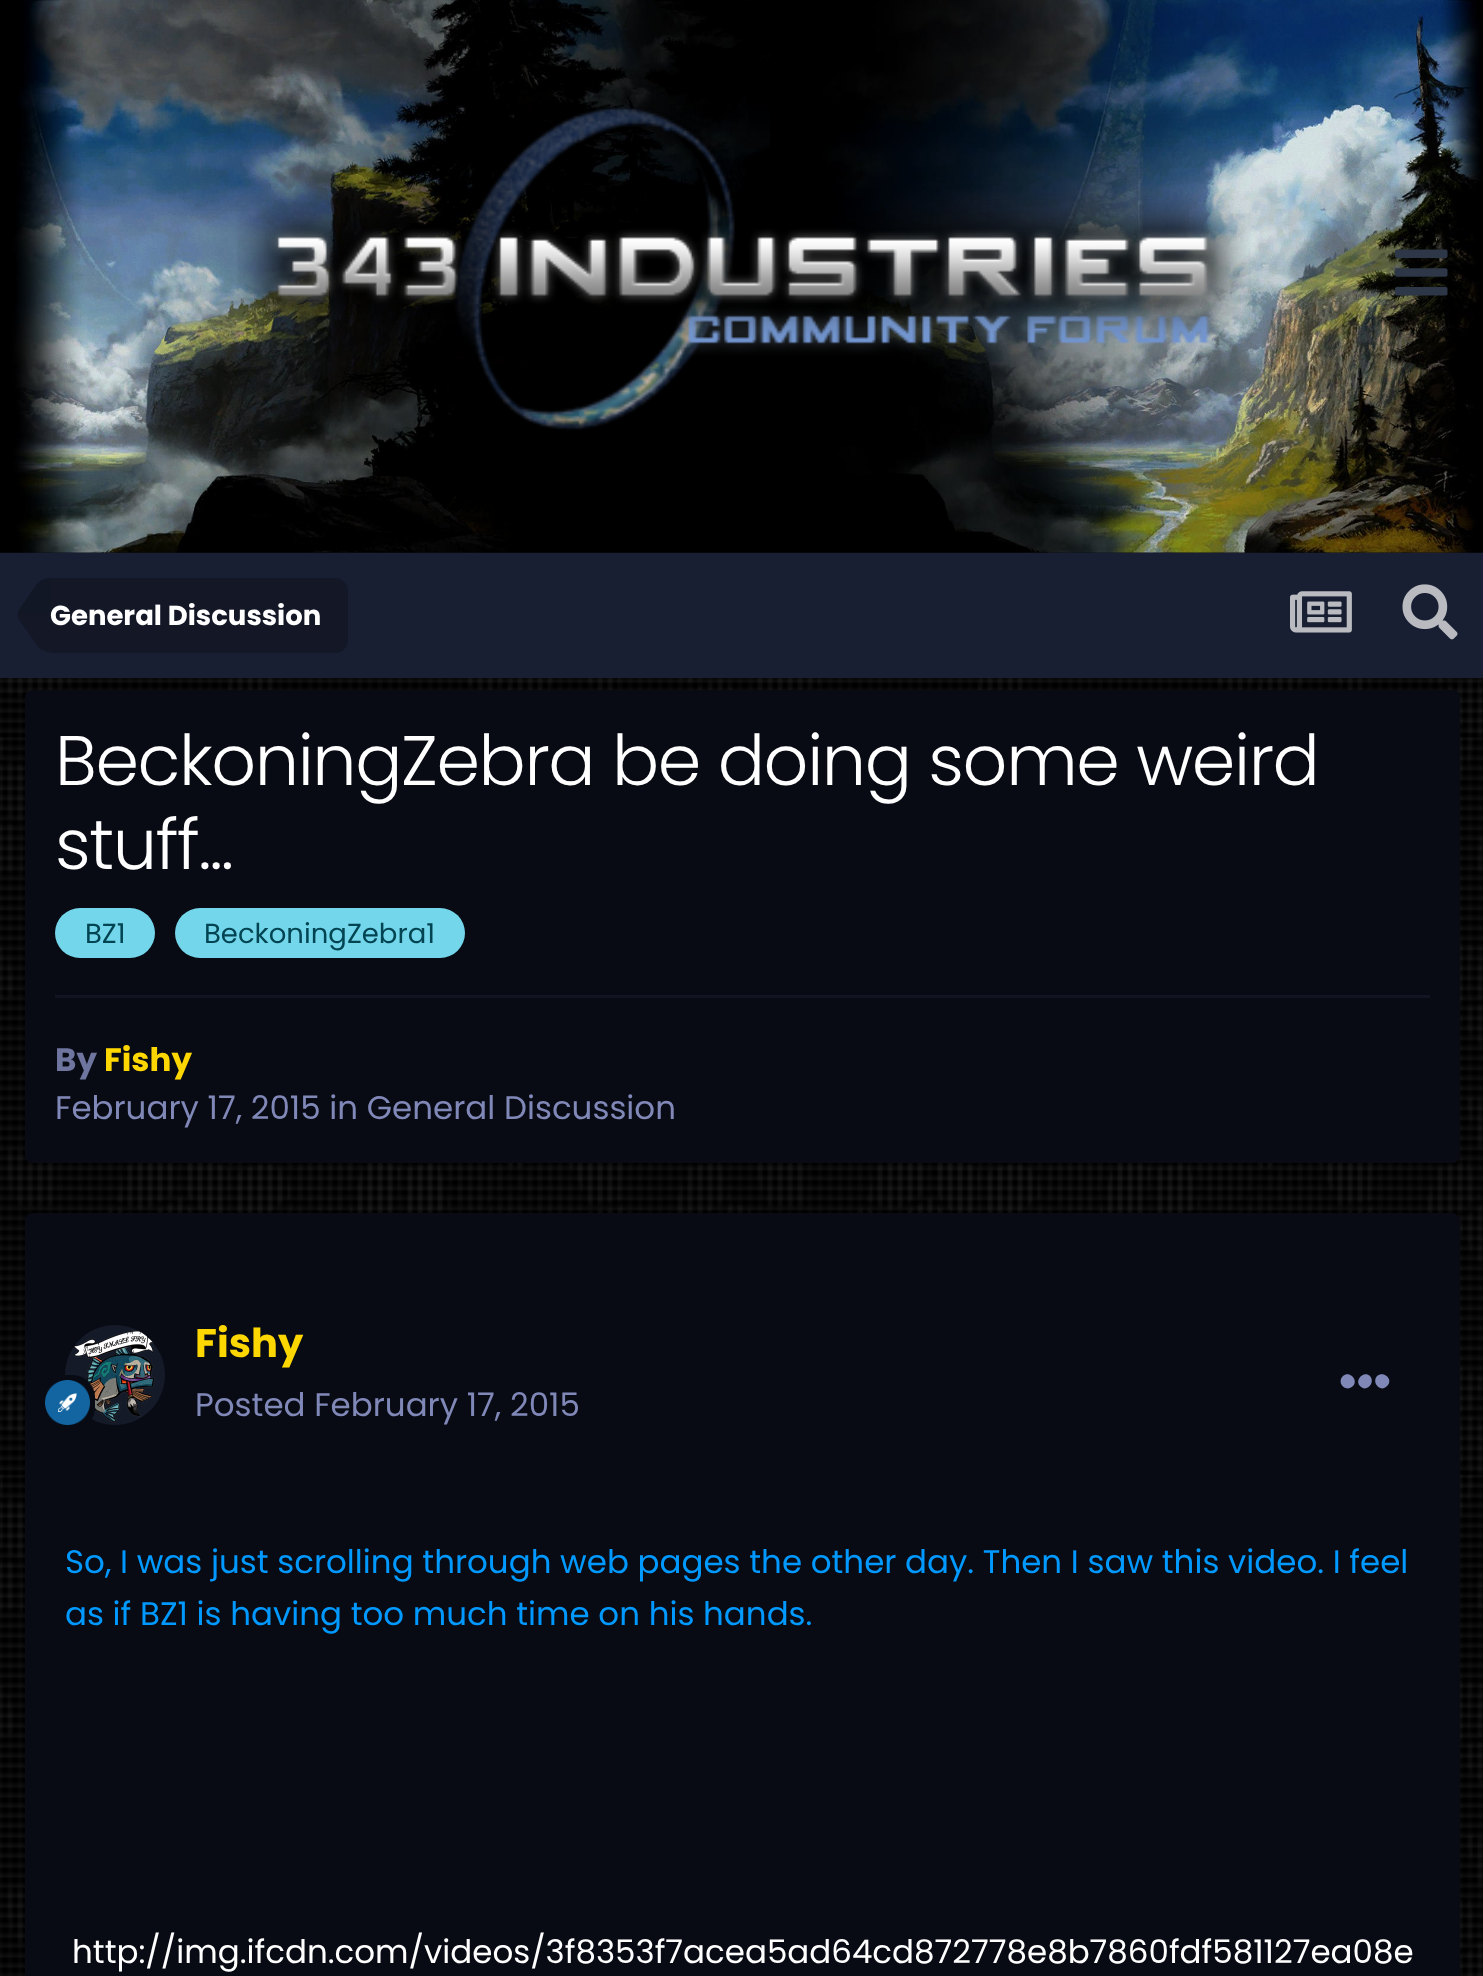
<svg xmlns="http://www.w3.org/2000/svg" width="1483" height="1976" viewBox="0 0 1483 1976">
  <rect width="100%" height="100%" fill="#ffffff"/>
  <image x="0" y="678" width="1483" height="1298" href="img1.png"/>
  <rect x="0" y="552" width="1483" height="1" fill="#0d111d"/>
  <image x="0" y="0" width="1483" height="553" href="img2.png"/>
  <image x="237" y="107" width="1014" height="324" href="img3.png"/>
  <image x="1395" y="249" width="53" height="47" href="img4.png"/>
  <rect x="0" y="553" width="1483" height="125" fill="#191f33"/>
  <path d="M50 578H335C342 578 348 584 348 591V640C348 647 342 653 335 653H50Z" fill="#131726"/>
  <path d="M18.5 619C18 617.5 17.5 616 17.5 614.5H50V652C45.5 652 41 650 37.5 646Z" fill="#131726"/>
  <path d="M50 578V614.5H17.5C17.5 613 17.5 611.5 18.5 610.5L37 583.5C41 579.5 45.5 578 50 578Z" fill="#000000" fill-opacity="0.25"/>
  <text x="50" y="625" font-family="Poppins" font-size="27.5" font-weight="bold" fill="#ffffff">General Discussion</text>
  <image x="1290" y="591" width="62" height="42" href="img5.png"/>
  <image x="1402" y="584" width="56" height="56" href="img6.png"/>
  <rect x="25" y="690" width="1435" height="473" rx="8" fill="#090b14"/>
  <text x="55" y="785" font-family="Poppins" font-size="70" font-weight="300" letter-spacing="-1.4" fill="#ffffff">BeckoningZebra be doing some weird</text>
  <text x="55" y="869" font-family="Poppins" font-size="70" font-weight="300" letter-spacing="-1.4" fill="#ffffff">stuff...</text>
  <rect x="55" y="908" width="100" height="50" rx="25" fill="#73d6eb"/>
  <text x="85" y="943" font-family="Poppins" font-size="27.5" fill="#034452">BZ1</text>
  <rect x="175" y="908" width="290" height="50" rx="25" fill="#73d6eb"/>
  <text x="204" y="943" font-family="Poppins" font-size="27.5" fill="#034452">BeckoningZebra1</text>
  <rect x="55" y="995" width="1375" height="3" fill="#111523"/>
  <text x="55" y="1071" font-family="Poppins" font-size="32.5" font-weight="bold" fill="#6e759e">By</text>
  <text x="104" y="1071" font-family="Poppins" font-size="32.5" font-weight="bold" fill="#ffd700">Fishy</text>
  <text x="55" y="1119" font-family="Poppins" font-size="32.5" fill="#8088b8">February 17, 2015 in General Discussion</text>
  <rect x="25" y="1213" width="1435" height="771" rx="8" fill="#090b14"/>
  <circle cx="115" cy="1375" r="50" fill="#141a28"/>
  <image x="74" y="1330" width="81" height="93" href="img7.png"/>
  <image x="45" y="1375" width="50" height="50" href="img8.png"/>
  <text x="195" y="1357" font-family="Poppins" font-size="40" font-weight="bold" fill="#ffd700">Fishy</text>
  <text x="195" y="1416" font-family="Poppins" font-size="32.5" fill="#8088b8">Posted February 17, 2015</text>
  <path d="M1370 1376C1376 1383 1366 1393 1360 1386C1354 1380 1364 1370 1370 1376ZM1377 1376C1384 1370 1394 1380 1387 1386C1381 1393 1371 1383 1377 1376ZM1343 1376C1349 1370 1359 1380 1353 1386C1346 1393 1336 1383 1343 1376Z" fill="#8088b8"/>
  <text x="65" y="1573" font-family="Poppins" font-size="32.5" fill="#0099ff">So, I was just scrolling through web pages the other day. Then I saw this video. I feel</text>
  <text x="65" y="1625" font-family="Poppins" font-size="32.5" fill="#0099ff">as if BZ1 is having too much time on his hands.</text>
  <text x="72" y="1963" font-family="Poppins" font-size="32.5" fill="#ffffff">http://img.ifcdn.com/videos/3f8353f7acea5ad64cd872778e8b7860fdf581127ea08e</text>
</svg>
